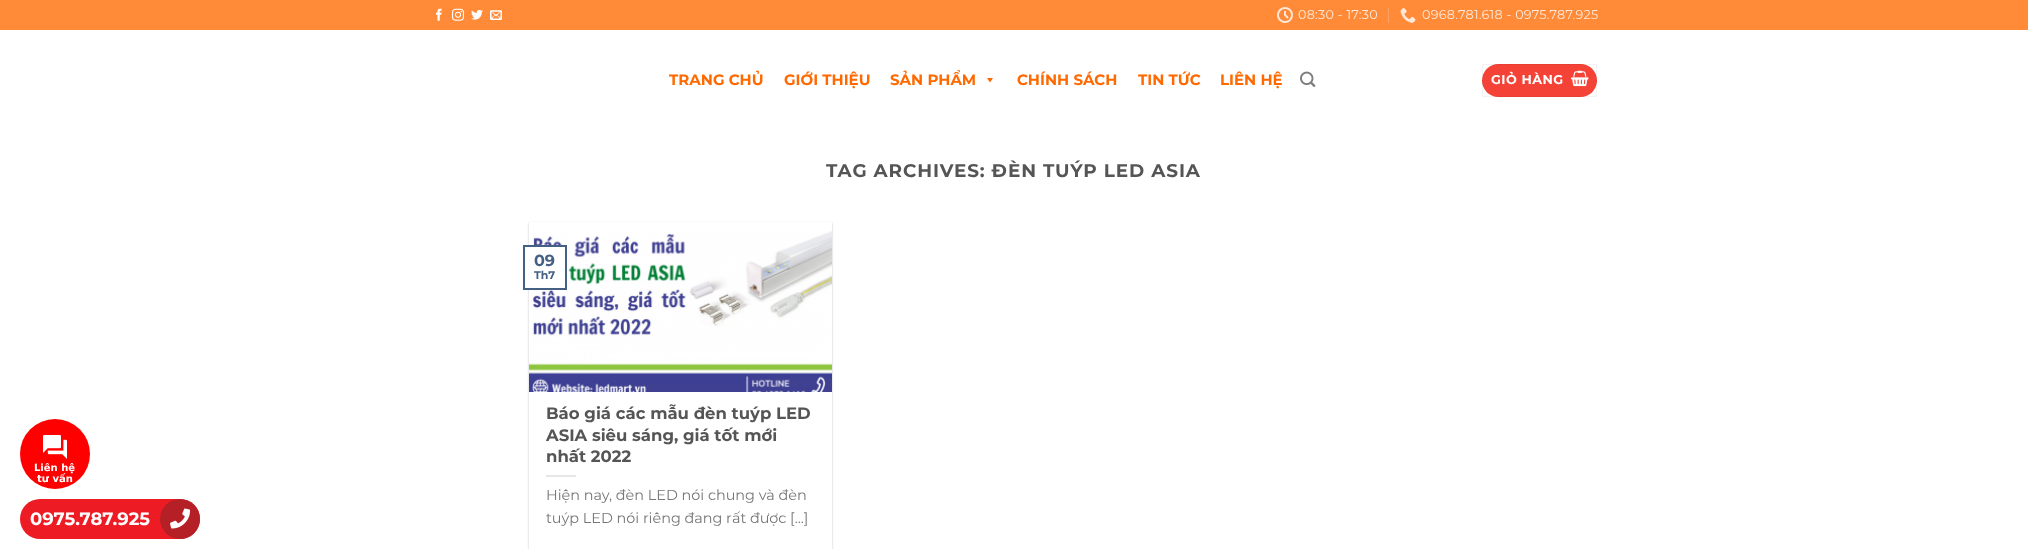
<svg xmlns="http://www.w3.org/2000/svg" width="2028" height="549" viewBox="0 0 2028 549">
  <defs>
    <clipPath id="clip1"><path d="M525 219H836V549H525ZM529 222H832V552H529Z" clip-rule="evenodd"/></clipPath>
    <filter id="blur1" x="-50%" y="-200%" width="200%" height="500%"><feGaussianBlur stdDeviation="1"/></filter>
  </defs>
  <rect width="100%" height="100%" fill="#ffffff"/>
  <circle cx="55" cy="454" r="35" fill="#ff0000"/>
  <image x="43" y="435" width="24" height="24" href="img1.png"/>
  <text x="34" y="471" font-family="DejaVu Sans" font-size="10" font-weight="bold" fill="#ffffff">Liên hệ</text>
  <text x="37" y="482" font-family="DejaVu Sans" font-size="10" font-weight="bold" fill="#ffffff">tư vấn</text>
  <rect x="0" y="0" width="2028" height="30" fill="#ff8a38"/>
  <image x="436" y="8" width="6" height="13" href="img2.png"/>
  <image x="452" y="8" width="12" height="13" href="img3.png"/>
  <image x="471" y="9" width="12" height="11" href="img4.png"/>
  <image x="490" y="10" width="12" height="10" href="img5.png"/>
  <image x="1277" y="7" width="16" height="16" href="img6.png"/>
  <text x="1298" y="19" font-family="Montserrat" font-size="12.75" letter-spacing="0.25" fill="#ffe8d7">08:30 - 17:30</text>
  <rect x="1388" y="8" width="1" height="15" fill="#ffa160"/>
  <image x="1400" y="8" width="16" height="15" href="img7.png"/>
  <text x="1422" y="19" font-family="Montserrat" font-size="12.75" letter-spacing="0.25" fill="#ffe8d7">0968.781.618 - 0975.787.925</text>
  <text x="669" y="85" font-family="Montserrat" font-size="15" font-weight="bold" fill="#ff6900">TRANG CHỦ</text>
  <text x="784" y="85" font-family="Montserrat" font-size="15" font-weight="bold" fill="#ff6900">GIỚI THIỆU</text>
  <text x="890" y="85" font-family="Montserrat" font-size="15" font-weight="bold" fill="#ff6900">SẢN PHẨM</text>
  <path d="M993 78L990 82.5L987 78Z" fill="#ff6900"/>
  <text x="1017" y="85" font-family="Montserrat" font-size="15" font-weight="bold" fill="#ff6900">CHÍNH SÁCH</text>
  <text x="1138" y="85" font-family="Montserrat" font-size="15" font-weight="bold" fill="#ff6900">TIN TỨC</text>
  <text x="1220" y="85" font-family="Montserrat" font-size="15" font-weight="bold" fill="#ff6900">LIÊN HỆ</text>
  <image x="1300" y="71" width="16" height="16" href="img8.png"/>
  <rect x="1482" y="64" width="115" height="33" rx="16.5" fill="#f44336"/>
  <rect x="1482.5" y="64.5" width="114" height="32" fill="none" stroke="#000000" stroke-opacity="0.05"/>
  <text x="1491" y="84" font-family="Montserrat" font-size="12.75" font-weight="bold" letter-spacing="0.5" fill="#ffffff">GIỎ HÀNG</text>
  <image x="1571" y="70" width="18" height="17" href="img9.png"/>
  <text x="826" y="177" font-family="Montserrat" font-size="18.4" font-weight="bold" letter-spacing="0.9" fill="#555555">TAG ARCHIVES: ĐÈN TUÝP LED ASIA</text>
  <g clip-path="url(#clip1)">
    <rect x="529" y="223" width="303" height="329" fill="#000000" fill-opacity="0.24" filter="url(#blur1)"/>
  </g>
  <image x="529" y="231" width="303" height="161" href="img10.png"/>
  <rect x="527" y="247" width="36" height="41" fill="#ffffff"/>
  <rect x="524" y="246" width="42" height="43" fill="none" stroke="#446084" stroke-width="2"/>
  <text x="534" y="266" font-family="Montserrat" font-size="16" font-weight="bold" fill="#446084">09</text>
  <text x="534" y="279" font-family="Montserrat" font-size="11" font-weight="bold" fill="#446084">Th7</text>
  <text x="546" y="419" font-family="Montserrat" font-size="16.5" font-weight="bold" fill="#555555">Báo giá các mẫu đèn tuýp LED</text>
  <text x="546" y="441" font-family="Montserrat" font-size="16.5" font-weight="bold" fill="#555555">ASIA siêu sáng, giá tốt mới</text>
  <text x="546" y="462" font-family="Montserrat" font-size="16.5" font-weight="bold" fill="#555555">nhất 2022</text>
  <rect x="546" y="475" width="30" height="2" fill="#e6e6e6"/>
  <text x="546" y="500" font-family="Montserrat" font-size="14.4" fill="#777777">Hiện nay, đèn LED nói chung và đèn</text>
  <text x="546" y="523" font-family="Montserrat" font-size="14.4" fill="#777777">tuýp LED nói riêng đang rất được [...]</text>
  <rect x="20" y="499" width="180" height="40" rx="20" fill="#ed1c24"/>
  <text x="30" y="525" font-family="Montserrat" font-size="18" font-weight="bold" fill="#ffffff">0975.787.925</text>
  <circle cx="180" cy="519" r="20" fill="#b52026"/>
  <image x="170" y="508" width="20" height="21" href="img11.png"/>
</svg>
